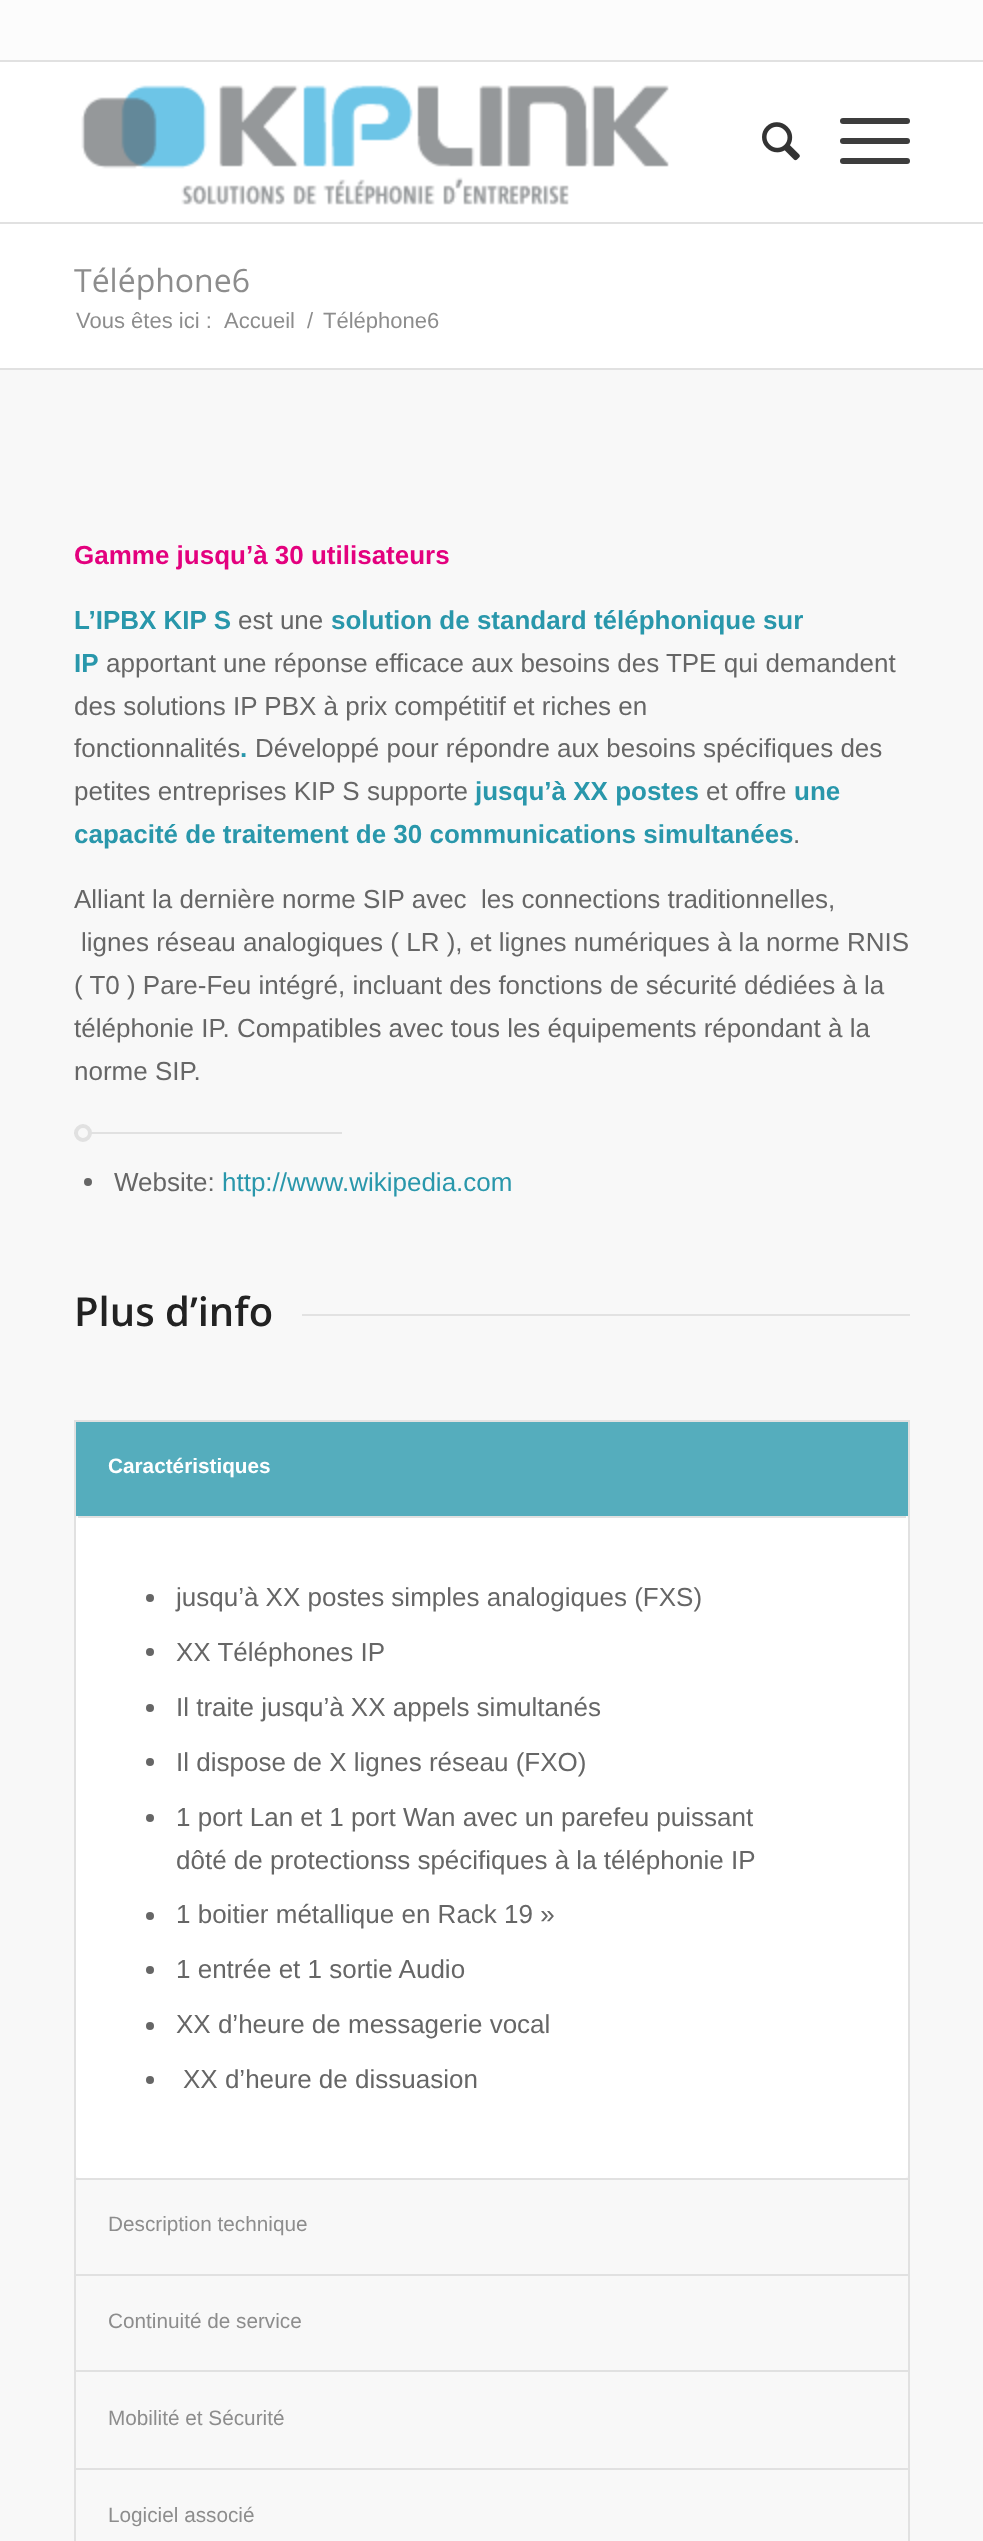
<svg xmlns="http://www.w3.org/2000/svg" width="983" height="2541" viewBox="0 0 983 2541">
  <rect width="100%" height="100%" fill="#ffffff"/>
  <rect x="0" y="0" width="983" height="60" fill="#fcfcfc"/>
  <rect x="0" y="60" width="983" height="2" fill="#e1e1e1"/>
  <rect x="0" y="222" width="983" height="2" fill="#e1e1e1"/>
  <image x="81" y="85" width="588" height="120" href="img1.png"/>
  <image x="762" y="122" width="38" height="39" href="img2.png"/>
  <rect x="840" y="138" width="70" height="6" rx="3" fill="#3d3d3d"/>
  <rect x="840" y="118" width="70" height="6" rx="3" fill="#3d3d3d"/>
  <rect x="840" y="158" width="70" height="6" rx="3" fill="#3d3d3d"/>
  <text x="74" y="292" font-family="Open Sans" font-size="32" fill="#8d8d8d">Téléphone6</text>
  <text x="76" y="328" font-family="Liberation Sans" font-size="22" fill="#8d8d8d">Vous êtes ici :</text>
  <text x="224" y="328" font-family="Liberation Sans" font-size="22" fill="#8d8d8d">Accueil</text>
  <text x="307" y="328" font-family="Liberation Sans" font-size="22" fill="#8d8d8d">/</text>
  <text x="323" y="328" font-family="Liberation Sans" font-size="22" fill="#8d8d8d">Téléphone6</text>
  <rect x="0" y="370" width="983" height="2171" fill="#f8f8f8"/>
  <rect x="0" y="368" width="983" height="2" fill="#e1e1e1"/>
  <text x="74" y="564" font-family="Liberation Sans" font-size="26" font-weight="bold" fill="#e3007e">Gamme jusqu’à 30 utilisateurs</text>
  <text x="74" y="629" font-family="Liberation Sans" font-size="26" font-weight="bold" fill="#2997ab">L’IPBX KIP S</text>
  <text x="238" y="629" font-family="Liberation Sans" font-size="26" fill="#666666">est une</text>
  <text x="331" y="629" font-family="Liberation Sans" font-size="26" font-weight="bold" fill="#2997ab">solution de standard téléphonique sur</text>
  <text x="74" y="672" font-family="Liberation Sans" font-size="26" font-weight="bold" fill="#2997ab">IP</text>
  <text x="106" y="672" font-family="Liberation Sans" font-size="26" fill="#666666">apportant une réponse efficace aux besoins des TPE qui demandent</text>
  <text x="74" y="715" font-family="Liberation Sans" font-size="26" fill="#666666">des solutions IP PBX à prix compétitif et riches en</text>
  <text x="74" y="757" font-family="Liberation Sans" font-size="26" fill="#666666">fonctionnalités</text>
  <text x="240" y="757" font-family="Liberation Sans" font-size="26" font-weight="bold" fill="#2997ab">.</text>
  <text x="255" y="757" font-family="Liberation Sans" font-size="26" fill="#666666">Développé pour répondre aux besoins spécifiques des</text>
  <text x="74" y="800" font-family="Liberation Sans" font-size="26" fill="#666666">petites entreprises KIP S supporte</text>
  <text x="475" y="800" font-family="Liberation Sans" font-size="26" font-weight="bold" fill="#2997ab">jusqu’à XX postes</text>
  <text x="706" y="800" font-family="Liberation Sans" font-size="26" fill="#666666">et offre</text>
  <text x="794" y="800" font-family="Liberation Sans" font-size="26" font-weight="bold" fill="#2997ab">une</text>
  <text x="74" y="843" font-family="Liberation Sans" font-size="26" font-weight="bold" fill="#2997ab">capacité de traitement de 30 communications simultanées</text>
  <text x="793" y="843" font-family="Liberation Sans" font-size="26" fill="#666666">.</text>
  <text x="74" y="908" font-family="Liberation Sans" font-size="26" fill="#666666" xml:space="preserve">Alliant la dernière norme SIP avec  les connections traditionnelles,</text>
  <text x="81" y="951" font-family="Liberation Sans" font-size="26" fill="#666666">lignes réseau analogiques ( LR ), et lignes numériques à la norme RNIS</text>
  <text x="74" y="994" font-family="Liberation Sans" font-size="26" fill="#666666">( T0 ) Pare-Feu intégré, incluant des fonctions de sécurité dédiées à la</text>
  <text x="74" y="1037" font-family="Liberation Sans" font-size="26" fill="#666666">téléphonie IP. Compatibles avec tous les équipements répondant à la</text>
  <text x="74" y="1080" font-family="Liberation Sans" font-size="26" fill="#666666">norme SIP.</text>
  <rect x="74" y="1132" width="268" height="2" fill="#e1e1e1"/>
  <circle cx="83" cy="1133" r="7" fill="#f8f8f8" stroke="#e1e1e1" stroke-width="4"/>
  <circle cx="88" cy="1182" r="4" fill="#666666"/>
  <text x="114" y="1191" font-family="Liberation Sans" font-size="26" fill="#666666">Website:</text>
  <text x="222" y="1191" font-family="Liberation Sans" font-size="26" fill="#2997ab">http://www.wikipedia.com</text>
  <text x="74" y="1326" font-family="Open Sans" font-size="40" font-weight="600" fill="#222222">Plus d’info</text>
  <rect x="302" y="1314" width="608" height="2" fill="#e2e2e2"/>
  <rect x="908" y="1420" width="2" height="1121" fill="#e1e1e1"/>
  <rect x="74" y="1420" width="2" height="1121" fill="#e1e1e1"/>
  <rect x="76" y="1422" width="832" height="94" fill="#55adbd"/>
  <rect x="76" y="1420" width="832" height="2" fill="#e1e1e1"/>
  <text x="108" y="1473" font-family="Liberation Sans" font-size="20.75" font-weight="bold" fill="#ffffff">Caractéristiques</text>
  <rect x="76" y="1516" width="832" height="662" rx="4" fill="#ffffff"/>
  <rect x="78" y="1516" width="828" height="2" fill="#e1e1e1"/>
  <circle cx="150" cy="1598" r="4" fill="#666666"/>
  <text x="176" y="1606" font-family="Liberation Sans" font-size="26" fill="#666666">jusqu’à XX postes simples analogiques (FXS)</text>
  <circle cx="150" cy="1652" r="4" fill="#666666"/>
  <text x="176" y="1661" font-family="Liberation Sans" font-size="26" fill="#666666">XX Téléphones IP</text>
  <circle cx="150" cy="1708" r="4" fill="#666666"/>
  <text x="176" y="1716" font-family="Liberation Sans" font-size="26" fill="#666666">Il traite jusqu’à XX appels simultanés</text>
  <circle cx="150" cy="1762" r="4" fill="#666666"/>
  <text x="176" y="1771" font-family="Liberation Sans" font-size="26" fill="#666666">Il dispose de X lignes réseau (FXO)</text>
  <circle cx="150" cy="1818" r="4" fill="#666666"/>
  <text x="176" y="1826" font-family="Liberation Sans" font-size="26" fill="#666666">1 port Lan et 1 port Wan avec un parefeu puissant</text>
  <text x="176" y="1869" font-family="Liberation Sans" font-size="26" fill="#666666">dôté de protectionss spécifiques à la téléphonie IP</text>
  <circle cx="150" cy="1916" r="4" fill="#666666"/>
  <text x="176" y="1923" font-family="Liberation Sans" font-size="26" fill="#666666">1 boitier métallique en Rack 19 »</text>
  <circle cx="150" cy="1970" r="4" fill="#666666"/>
  <text x="176" y="1978" font-family="Liberation Sans" font-size="26" fill="#666666">1 entrée et 1 sortie Audio</text>
  <circle cx="150" cy="2026" r="4" fill="#666666"/>
  <text x="176" y="2033" font-family="Liberation Sans" font-size="26" fill="#666666">XX d’heure de messagerie vocal</text>
  <circle cx="150" cy="2080" r="4" fill="#666666"/>
  <text x="183" y="2088" font-family="Liberation Sans" font-size="26" fill="#666666">XX d’heure de dissuasion</text>
  <rect x="76" y="2178" width="832" height="2" fill="#e1e1e1"/>
  <text x="108" y="2231" font-family="Liberation Sans" font-size="20.75" fill="#8d8d8d">Description technique</text>
  <rect x="76" y="2274" width="832" height="2" fill="#e1e1e1"/>
  <text x="108" y="2328" font-family="Liberation Sans" font-size="20.75" fill="#8d8d8d">Continuité de service</text>
  <rect x="76" y="2370" width="832" height="2" fill="#e1e1e1"/>
  <text x="108" y="2425" font-family="Liberation Sans" font-size="20.75" fill="#8d8d8d">Mobilité et Sécurité</text>
  <rect x="76" y="2468" width="832" height="2" fill="#e1e1e1"/>
  <text x="108" y="2522" font-family="Liberation Sans" font-size="20.75" fill="#8d8d8d">Logiciel associé</text>
</svg>
